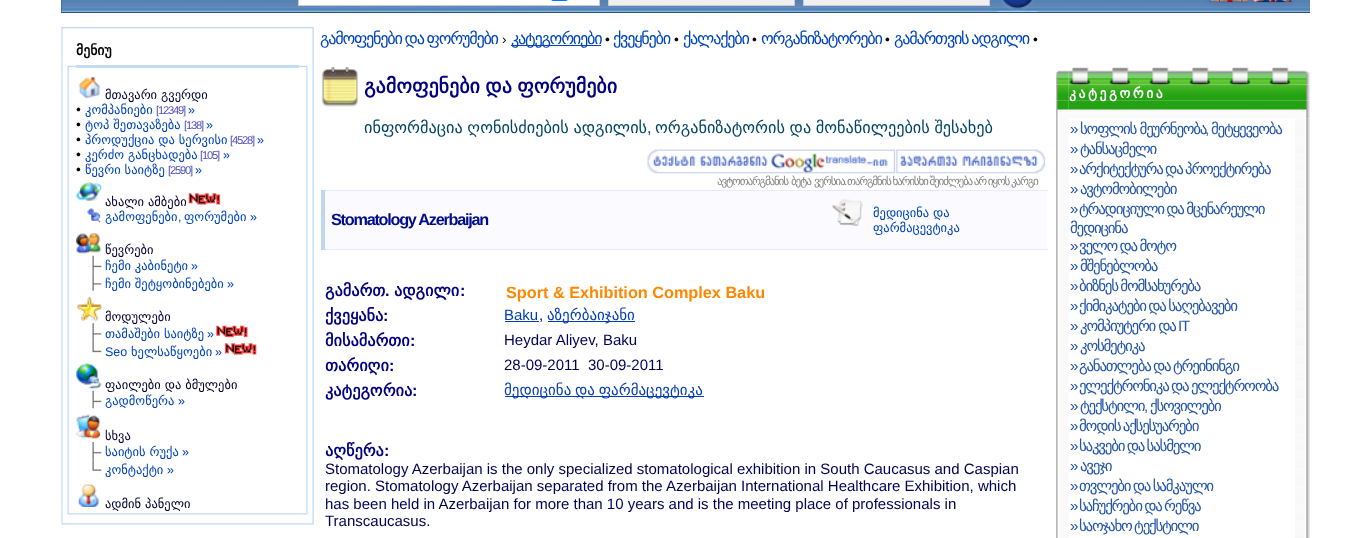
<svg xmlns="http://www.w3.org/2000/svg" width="1371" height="538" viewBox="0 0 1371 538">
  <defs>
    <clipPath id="clip1"><rect x="298" y="0" width="245" height="6"/></clipPath>
    <filter id="blur1" x="-50%" y="-200%" width="200%" height="500%"><feGaussianBlur stdDeviation="3"/></filter>
  </defs>
  <rect width="100%" height="100%" fill="#ffffff"/>
  <rect x="61" y="0" width="1249" height="13" fill="#285086"/>
  <image x="61" y="0" width="1249" height="12" href="img4.png"/>
  <rect x="298" y="0" width="301" height="5" fill="#ffffff"/>
  <rect x="599" y="0" width="1" height="6" fill="#cccccc"/>
  <rect x="543" y="5" width="57" height="1" fill="#cccccc"/>
  <rect x="551" y="-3" width="17" height="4" rx="2.5" fill="#0075ff"/>
  <g clip-path="url(#clip1)">
    <rect x="298.5" y="-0.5" width="246" height="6" fill="none" stroke="#cccccc"/>
  </g>
  <rect x="608.5" y="-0.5" width="186" height="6" fill="#efefef" stroke="#cccccc"/>
  <rect x="803.5" y="-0.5" width="186" height="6" fill="#efefef" stroke="#cccccc"/>
  <image x="997" y="0" width="41" height="12" href="img1.png"/>
  <rect x="1254" y="-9" width="37" height="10" fill="#323264" fill-opacity="0.5" filter="url(#blur1)"/>
  <image x="1253" y="0" width="39" height="2" href="img3.png"/>
  <rect x="1211" y="-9" width="38" height="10" fill="#323264" fill-opacity="0.5" filter="url(#blur1)"/>
  <image x="1211" y="0" width="38" height="2" href="img2.png"/>
  <image x="61" y="27" width="15" height="15" href="img5.png"/>
  <image x="76" y="27" width="223" height="2" href="img6.png"/>
  <image x="299" y="27" width="15" height="15" href="img7.png"/>
  <image x="61" y="42" width="2" height="17" href="img8.png"/>
  <text x="76" y="55" font-family="DejaVu Sans" font-size="13.75" font-weight="bold" fill="#000000">მენიუ</text>
  <image x="312" y="42" width="2" height="17" href="img9.png"/>
  <rect x="76" y="65" width="223" height="3" fill="#c5dbf2"/>
  <image x="61" y="73" width="8" height="437" href="img12.png"/>
  <image x="61" y="58" width="16" height="16" href="img10.png"/>
  <image x="306" y="73" width="8" height="437" href="img30.png"/>
  <image x="298" y="58" width="16" height="16" href="img11.png"/>
  <image x="78" y="76" width="23" height="23" href="img13.png"/>
  <text x="105" y="99" font-family="DejaVu Sans" font-size="12.5" fill="#02032f">მთავარი გვერდი</text>
  <text x="76" y="114" font-family="Liberation Sans" font-size="13.75" fill="#000000">•</text>
  <text x="85" y="114" font-family="DejaVu Sans" font-size="12.5" fill="#0044bb">კომპანიები</text>
  <text x="156" y="114" font-family="Liberation Sans" font-size="11.25" letter-spacing="-1.25" fill="#5050c0">[12349]</text>
  <text x="188" y="114" font-family="Liberation Sans" font-size="12.5" fill="#0044bb">»</text>
  <text x="76" y="129" font-family="Liberation Sans" font-size="13.75" fill="#000000">•</text>
  <text x="85" y="129" font-family="DejaVu Sans" font-size="12.5" fill="#0044bb">ტოპ შეთავაზება</text>
  <text x="184" y="129" font-family="Liberation Sans" font-size="11.25" letter-spacing="-1.25" fill="#5050c0">[138]</text>
  <text x="206" y="129" font-family="Liberation Sans" font-size="12.5" fill="#0044bb">»</text>
  <text x="76" y="144" font-family="Liberation Sans" font-size="13.75" fill="#000000">•</text>
  <text x="85" y="144" font-family="DejaVu Sans" font-size="12.5" fill="#0044bb">პროდუქცია და სერვისი</text>
  <text x="230" y="144" font-family="Liberation Sans" font-size="11.25" letter-spacing="-1.25" fill="#5050c0">[4528]</text>
  <text x="257" y="144" font-family="Liberation Sans" font-size="12.5" fill="#0044bb">»</text>
  <text x="76" y="159" font-family="Liberation Sans" font-size="13.75" fill="#000000">•</text>
  <text x="85" y="159" font-family="DejaVu Sans" font-size="12.5" fill="#0044bb">კერძო განცხადება</text>
  <text x="200" y="159" font-family="Liberation Sans" font-size="11.25" letter-spacing="-1.25" fill="#5050c0">[105]</text>
  <text x="223" y="159" font-family="Liberation Sans" font-size="12.5" fill="#0044bb">»</text>
  <text x="76" y="174" font-family="Liberation Sans" font-size="13.75" fill="#000000">•</text>
  <text x="85" y="174" font-family="DejaVu Sans" font-size="12.5" fill="#0044bb">წევრი საიტზე</text>
  <text x="168" y="174" font-family="Liberation Sans" font-size="11.25" letter-spacing="-1.25" fill="#5050c0">[2590]</text>
  <text x="195" y="174" font-family="Liberation Sans" font-size="12.5" fill="#0044bb">»</text>
  <image x="76" y="182" width="26" height="19" href="img14.png"/>
  <text x="105" y="206" font-family="DejaVu Sans" font-size="12.5" fill="#02032f">ახალი ამბები</text>
  <image x="188" y="193" width="33" height="12" href="img15.png"/>
  <image x="87" y="208" width="14" height="15" href="img16.png"/>
  <text x="105" y="221" font-family="DejaVu Sans" font-size="12.5" fill="#0044bb">გამოფენები</text>
  <text x="178" y="221" font-family="Liberation Sans" font-size="12.5" fill="#0044bb">,</text>
  <text x="184" y="221" font-family="DejaVu Sans" font-size="12.5" fill="#0044bb">ფორუმები</text>
  <text x="250" y="221" font-family="Liberation Sans" font-size="12.5" fill="#0044bb">»</text>
  <image x="76" y="233" width="26" height="21" href="img17.png"/>
  <text x="105" y="254" font-family="DejaVu Sans" font-size="12.5" fill="#02032f">წევრები</text>
  <image x="92" y="255" width="10" height="19" href="img18.png"/>
  <text x="105" y="270" font-family="DejaVu Sans" font-size="12.5" fill="#0044bb">ჩემი კაბინეტი</text>
  <text x="191" y="270" font-family="Liberation Sans" font-size="12.5" fill="#0044bb">»</text>
  <image x="92" y="273" width="10" height="18" href="img19.png"/>
  <text x="105" y="288" font-family="DejaVu Sans" font-size="12.5" fill="#0044bb">ჩემი შეტყობინებები</text>
  <text x="227" y="288" font-family="Liberation Sans" font-size="12.5" fill="#0044bb">»</text>
  <image x="77" y="296" width="25" height="25" href="img20.png"/>
  <text x="105" y="321" font-family="DejaVu Sans" font-size="12.5" fill="#02032f">მოდულები</text>
  <image x="92" y="323" width="10" height="18" href="img21.png"/>
  <text x="105" y="338" font-family="DejaVu Sans" font-size="12.5" fill="#0044bb">თამაშები საიტზე</text>
  <text x="207" y="338" font-family="Liberation Sans" font-size="12.5" fill="#0044bb">»</text>
  <image x="216" y="325" width="32" height="13" href="img22.png"/>
  <image x="92" y="340" width="10" height="13" href="img23.png"/>
  <text x="105" y="356" font-family="Liberation Sans" font-size="12.5" fill="#0044bb">Seo</text>
  <text x="131" y="356" font-family="DejaVu Sans" font-size="12.5" fill="#0044bb">ხელსაწყოები</text>
  <text x="215" y="356" font-family="Liberation Sans" font-size="12.5" fill="#0044bb">»</text>
  <image x="224" y="343" width="33" height="12" href="img24.png"/>
  <image x="76" y="363" width="26" height="26" href="img25.png"/>
  <text x="105" y="389" font-family="DejaVu Sans" font-size="12.5" fill="#02032f">ფაილები და ბმულები</text>
  <image x="92" y="390" width="10" height="19" href="img18.png"/>
  <text x="105" y="405" font-family="DejaVu Sans" font-size="12.5" fill="#0044bb">გადმოწერა</text>
  <text x="178" y="405" font-family="Liberation Sans" font-size="12.5" fill="#0044bb">»</text>
  <image x="76" y="414" width="25" height="25" href="img26.png"/>
  <text x="105" y="440" font-family="DejaVu Sans" font-size="12.5" fill="#02032f">სხვა</text>
  <image x="92" y="442" width="10" height="18" href="img27.png"/>
  <text x="105" y="456" font-family="DejaVu Sans" font-size="12.5" fill="#0044bb">საიტის რუქა</text>
  <text x="182" y="456" font-family="Liberation Sans" font-size="12.5" fill="#0044bb">»</text>
  <image x="92" y="459" width="10" height="12" href="img28.png"/>
  <text x="105" y="474" font-family="DejaVu Sans" font-size="12.5" fill="#0044bb">კონტაქტი</text>
  <text x="167" y="474" font-family="Liberation Sans" font-size="12.5" fill="#0044bb">»</text>
  <image x="78" y="484" width="21" height="23" href="img29.png"/>
  <text x="105" y="508" font-family="DejaVu Sans" font-size="12.5" fill="#02032f">ადმინ პანელი</text>
  <image x="76" y="513" width="223" height="12" href="img32.png"/>
  <image x="61" y="509" width="16" height="16" href="img31.png"/>
  <image x="298" y="509" width="16" height="16" href="img33.png"/>
  <text x="320" y="44" word-spacing="-1" font-family="DejaVu Sans" font-size="16.25" letter-spacing="-1.25" fill="#0044bb">გამოფენები და ფორუმები</text>
  <text x="502" y="44" font-family="Liberation Sans" font-size="13.75" fill="#000000">›</text>
  <rect x="511" y="45" width="90" height="1" fill="#0044bb"/>
  <text x="511" y="44" font-family="DejaVu Sans" font-size="16.25" letter-spacing="-1.25" fill="#0044bb">კატეგორიები</text>
  <text x="605" y="44" font-family="Liberation Sans" font-size="13.75" fill="#000000">•</text>
  <text x="613" y="44" font-family="DejaVu Sans" font-size="16.25" letter-spacing="-1.25" fill="#0044bb">ქვეყნები</text>
  <text x="674" y="44" font-family="Liberation Sans" font-size="13.75" fill="#000000">•</text>
  <text x="683" y="44" font-family="DejaVu Sans" font-size="16.25" letter-spacing="-1.25" fill="#0044bb">ქალაქები</text>
  <text x="752" y="44" font-family="Liberation Sans" font-size="13.75" fill="#000000">•</text>
  <text x="761" y="44" font-family="DejaVu Sans" font-size="16.25" letter-spacing="-1.25" fill="#0044bb">ორგანიზატორები</text>
  <text x="885" y="44" font-family="Liberation Sans" font-size="13.75" fill="#000000">•</text>
  <text x="894" y="44" word-spacing="-1" font-family="DejaVu Sans" font-size="16.25" letter-spacing="-1.25" fill="#0044bb">გამართვის ადგილი</text>
  <text x="1033" y="44" font-family="Liberation Sans" font-size="13.75" fill="#000000">•</text>
  <image x="321" y="67" width="38" height="40" href="img34.png"/>
  <text x="364" y="93" word-spacing="-1" font-family="DejaVu Sans" font-size="20" font-weight="bold" fill="#000080">გამოფენები და ფორუმები</text>
  <text x="364" y="133" word-spacing="-0.5" font-family="DejaVu Sans" font-size="16.25" fill="#004466">ინფორმაცია ღონისძიების ადგილის</text>
  <text x="647" y="133" font-family="Liberation Sans" font-size="16.25" fill="#004466">,</text>
  <text x="655" y="133" word-spacing="-0.5" font-family="DejaVu Sans" font-size="16.25" fill="#004466">ორგანიზატორის და მონაწილეების შესახებ</text>
  <image x="647" y="149" width="249" height="25" href="img35.png"/>
  <image x="896" y="149" width="150" height="25" href="img36.png"/>
  <text x="717" y="185" font-family="DejaVu Sans" font-size="11.25" letter-spacing="-1.25" fill="#878787">ავტოთარგმანის</text>
  <text x="791" y="185" font-family="DejaVu Sans" font-size="11.25" letter-spacing="-1.25" fill="#878787">ბეტა</text>
  <text x="814" y="185" font-family="DejaVu Sans" font-size="11.25" letter-spacing="-1.25" fill="#878787">ვერსია</text>
  <text x="847" y="185" word-spacing="-0.5" font-family="DejaVu Sans" font-size="11.25" letter-spacing="-1.25" fill="#878787">თარგმნის ხარისხი შეიძლება არ იყოს კარგი</text>
  <text x="844" y="185" font-family="Liberation Sans" font-size="11.25" letter-spacing="-1.25" fill="#878787">.</text>
  <rect x="321" y="191" width="4" height="59" fill="#bed7f1"/>
  <rect x="325" y="190" width="723" height="1" fill="#e8e8ff"/>
  <rect x="321" y="190" width="5" height="1" fill="#bed7f1"/>
  <rect x="325" y="249" width="723" height="1" fill="#e8e8ff"/>
  <rect x="321" y="249" width="5" height="1" fill="#bed7f1"/>
  <rect x="325" y="191" width="721" height="58" fill="#fafaff"/>
  <text x="331" y="225" font-family="Liberation Sans" font-size="16.25" font-weight="bold" letter-spacing="-1.25" fill="#010d87">Stomatology Azerbaijan</text>
  <image x="832" y="198" width="31" height="29" href="img37.png"/>
  <text x="873" y="217" font-family="DejaVu Sans" font-size="12.5" fill="#0044bb">მედიცინა და</text>
  <text x="873" y="232" font-family="DejaVu Sans" font-size="12.5" fill="#0044bb">ფარმაცევტიკა</text>
  <text x="325" y="296" font-family="DejaVu Sans" font-size="16.25" font-weight="bold" fill="#000080">გამართ</text>
  <text x="385" y="296" font-family="Liberation Sans" font-size="16.25" font-weight="bold" fill="#000080">.</text>
  <text x="394" y="296" font-family="DejaVu Sans" font-size="16.25" font-weight="bold" fill="#000080">ადგილი</text>
  <text x="460" y="296" font-family="Liberation Sans" font-size="16.25" font-weight="bold" fill="#000080">:</text>
  <text x="506" y="298" font-family="Liberation Sans" font-size="16.25" font-weight="bold" fill="#ff8700">Sport &amp; Exhibition Complex Baku</text>
  <text x="325" y="321" font-family="DejaVu Sans" font-size="16.25" font-weight="bold" fill="#000080">ქვეყანა</text>
  <text x="383" y="321" font-family="Liberation Sans" font-size="16.25" font-weight="bold" fill="#000080">:</text>
  <text x="504" y="320" font-family="Liberation Sans" font-size="15" fill="#023db5">Baku</text>
  <rect x="505" y="321" width="34" height="1" fill="#023db5"/>
  <text x="539" y="320" font-family="Liberation Sans" font-size="15" fill="#000055">,</text>
  <rect x="548" y="321" width="87" height="1" fill="#023db5"/>
  <text x="547" y="320" font-family="DejaVu Sans" font-size="15" fill="#023db5">აზერბაიჯანი</text>
  <text x="325" y="346" font-family="DejaVu Sans" font-size="16.25" font-weight="bold" fill="#000080">მისამართი</text>
  <text x="410" y="346" font-family="Liberation Sans" font-size="16.25" font-weight="bold" fill="#000080">:</text>
  <text x="504" y="345" font-family="Liberation Sans" font-size="15" fill="#000055">Heydar Aliyev, Baku</text>
  <text x="325" y="371" font-family="DejaVu Sans" font-size="16.25" font-weight="bold" fill="#000080">თარიღი</text>
  <text x="389" y="371" font-family="Liberation Sans" font-size="16.25" font-weight="bold" fill="#000080">:</text>
  <text x="504" y="370" font-family="Liberation Sans" font-size="15" fill="#000055" xml:space="preserve">28-09-2011  30-09-2011</text>
  <text x="325" y="396" font-family="DejaVu Sans" font-size="16.25" font-weight="bold" fill="#000080">კატეგორია</text>
  <text x="412" y="396" font-family="Liberation Sans" font-size="16.25" font-weight="bold" fill="#000080">:</text>
  <rect x="505" y="396" width="199" height="1" fill="#023db5"/>
  <text x="504" y="395" word-spacing="-1" font-family="DejaVu Sans" font-size="15" fill="#023db5">მედიცინა და ფარმაცევტიკა</text>
  <text x="325" y="456" font-family="DejaVu Sans" font-size="16.25" font-weight="bold" fill="#000080">აღწერა</text>
  <text x="384" y="456" font-family="Liberation Sans" font-size="16.25" font-weight="bold" fill="#000080">:</text>
  <text x="325" y="474" font-family="Liberation Sans" font-size="15" fill="#000055">Stomatology Azerbaijan is the only specialized stomatological exhibition in South Caucasus and Caspian</text>
  <text x="325" y="491" font-family="Liberation Sans" font-size="15" fill="#000055">region. Stomatology Azerbaijan separated from the Azerbaijan International Healthcare Exhibition, which</text>
  <text x="325" y="509" font-family="Liberation Sans" font-size="15" fill="#000055">has been held in Azerbaijan for more than 10 years and is the meeting place of professionals in</text>
  <text x="325" y="526" font-family="Liberation Sans" font-size="15" fill="#000055">Transcaucasus.</text>
  <image x="1068" y="67" width="227" height="18" href="img39.png"/>
  <image x="1056" y="84" width="13" height="17" href="img41.png"/>
  <image x="1068" y="84" width="227" height="17" href="img42.png"/>
  <image x="1056" y="70" width="13" height="15" href="img38.png"/>
  <image x="1295" y="84" width="15" height="17" href="img43.png"/>
  <image x="1295" y="70" width="15" height="15" href="img40.png"/>
  <image x="1068" y="100" width="227" height="18" href="img45.png"/>
  <text x="1069" y="98" font-family="DejaVu Sans" font-size="13.75" font-weight="bold" letter-spacing="2.5" fill="#ffffff">კატეგორია</text>
  <image x="1056" y="118" width="13" height="420" href="img47.png"/>
  <image x="1056" y="100" width="13" height="19" href="img44.png"/>
  <image x="1295" y="118" width="15" height="420" href="img48.png"/>
  <image x="1295" y="100" width="15" height="19" href="img46.png"/>
  <text x="1070" y="134" font-family="Liberation Sans" font-size="15" letter-spacing="-1.25" fill="#2255aa">»</text>
  <text x="1080" y="134" font-family="DejaVu Sans" font-size="15" letter-spacing="-1.25" fill="#2255aa">სოფლის მეურნეობა</text>
  <text x="1211" y="134" font-family="DejaVu Sans" font-size="15" letter-spacing="-1.25" fill="#2255aa">მეტყევეობა</text>
  <text x="1205" y="134" font-family="Liberation Sans" font-size="15" letter-spacing="-1.25" fill="#2255aa">,</text>
  <text x="1070" y="154" font-family="Liberation Sans" font-size="15" letter-spacing="-1.25" fill="#2255aa">»</text>
  <text x="1080" y="154" font-family="DejaVu Sans" font-size="15" letter-spacing="-1.25" fill="#2255aa">ტანსაცმელი</text>
  <text x="1070" y="174" font-family="Liberation Sans" font-size="15" letter-spacing="-1.25" fill="#2255aa">»</text>
  <text x="1079" y="174" word-spacing="-1" font-family="DejaVu Sans" font-size="15" letter-spacing="-1.25" fill="#2255aa">არქიტექტურა და პროექტირება</text>
  <text x="1070" y="194" font-family="Liberation Sans" font-size="15" letter-spacing="-1.25" fill="#2255aa">»</text>
  <text x="1080" y="194" font-family="DejaVu Sans" font-size="15" letter-spacing="-1.25" fill="#2255aa">ავტომობილები</text>
  <text x="1070" y="214" font-family="Liberation Sans" font-size="15" letter-spacing="-1.25" fill="#2255aa">»</text>
  <text x="1079" y="214" word-spacing="-1" font-family="DejaVu Sans" font-size="15" letter-spacing="-1.25" fill="#2255aa">ტრადიციული და მცენარეული</text>
  <text x="1070" y="233" font-family="DejaVu Sans" font-size="15" letter-spacing="-1.25" fill="#2255aa">მედიცინა</text>
  <text x="1070" y="251" font-family="Liberation Sans" font-size="15" letter-spacing="-1.25" fill="#2255aa">»</text>
  <text x="1079" y="251" word-spacing="-1" font-family="DejaVu Sans" font-size="15" letter-spacing="-1.25" fill="#2255aa">ველო და მოტო</text>
  <text x="1070" y="271" font-family="Liberation Sans" font-size="15" letter-spacing="-1.25" fill="#2255aa">»</text>
  <text x="1080" y="271" font-family="DejaVu Sans" font-size="15" letter-spacing="-1.25" fill="#2255aa">მშენებლობა</text>
  <text x="1070" y="291" font-family="Liberation Sans" font-size="15" letter-spacing="-1.25" fill="#2255aa">»</text>
  <text x="1079" y="291" word-spacing="-1" font-family="DejaVu Sans" font-size="15" letter-spacing="-1.25" fill="#2255aa">ბიზნეს მომსახურება</text>
  <text x="1070" y="311" font-family="Liberation Sans" font-size="15" letter-spacing="-1.25" fill="#2255aa">»</text>
  <text x="1079" y="311" word-spacing="-1" font-family="DejaVu Sans" font-size="15" letter-spacing="-1.25" fill="#2255aa">ქიმიკატები და საღებავები</text>
  <text x="1070" y="331" font-family="Liberation Sans" font-size="15" letter-spacing="-1.25" fill="#2255aa">»</text>
  <text x="1080" y="331" word-spacing="-0.5" font-family="DejaVu Sans" font-size="15" letter-spacing="-1.25" fill="#2255aa">კომპიუტერი და</text>
  <text x="1178" y="331" font-family="Liberation Sans" font-size="15" letter-spacing="-1.25" fill="#2255aa">IT</text>
  <text x="1070" y="351" font-family="Liberation Sans" font-size="15" letter-spacing="-1.25" fill="#2255aa">»</text>
  <text x="1080" y="351" font-family="DejaVu Sans" font-size="15" letter-spacing="-1.25" fill="#2255aa">კოსმეტიკა</text>
  <text x="1070" y="371" font-family="Liberation Sans" font-size="15" letter-spacing="-1.25" fill="#2255aa">»</text>
  <text x="1079" y="371" word-spacing="-1" font-family="DejaVu Sans" font-size="15" letter-spacing="-1.25" fill="#2255aa">განათლება და ტრეინინგი</text>
  <text x="1070" y="391" font-family="Liberation Sans" font-size="15" letter-spacing="-1.25" fill="#2255aa">»</text>
  <text x="1079" y="391" word-spacing="-1" font-family="DejaVu Sans" font-size="15" letter-spacing="-1.25" fill="#2255aa">ელექტრონიკა და ელექტროობა</text>
  <text x="1070" y="411" font-family="Liberation Sans" font-size="15" letter-spacing="-1.25" fill="#2255aa">»</text>
  <text x="1080" y="411" font-family="DejaVu Sans" font-size="15" letter-spacing="-1.25" fill="#2255aa">ტექსტილი</text>
  <text x="1150" y="411" font-family="DejaVu Sans" font-size="15" letter-spacing="-1.25" fill="#2255aa">ქსოვილები</text>
  <text x="1144" y="411" font-family="Liberation Sans" font-size="15" letter-spacing="-1.25" fill="#2255aa">,</text>
  <text x="1070" y="431" font-family="Liberation Sans" font-size="15" letter-spacing="-1.25" fill="#2255aa">»</text>
  <text x="1079" y="431" word-spacing="-1" font-family="DejaVu Sans" font-size="15" letter-spacing="-1.25" fill="#2255aa">მოდის აქსესუარები</text>
  <text x="1070" y="451" font-family="Liberation Sans" font-size="15" letter-spacing="-1.25" fill="#2255aa">»</text>
  <text x="1079" y="451" word-spacing="-1" font-family="DejaVu Sans" font-size="15" letter-spacing="-1.25" fill="#2255aa">საკვები და სასმელი</text>
  <text x="1070" y="471" font-family="Liberation Sans" font-size="15" letter-spacing="-1.25" fill="#2255aa">»</text>
  <text x="1080" y="471" font-family="DejaVu Sans" font-size="15" letter-spacing="-1.25" fill="#2255aa">ავეჯი</text>
  <text x="1070" y="491" font-family="Liberation Sans" font-size="15" letter-spacing="-1.25" fill="#2255aa">»</text>
  <text x="1079" y="491" word-spacing="-1" font-family="DejaVu Sans" font-size="15" letter-spacing="-1.25" fill="#2255aa">თვლები და სამკაული</text>
  <text x="1070" y="511" font-family="Liberation Sans" font-size="15" letter-spacing="-1.25" fill="#2255aa">»</text>
  <text x="1079" y="511" word-spacing="-1" font-family="DejaVu Sans" font-size="15" letter-spacing="-1.25" fill="#2255aa">საჩუქრები და რეწვა</text>
  <text x="1070" y="531" font-family="Liberation Sans" font-size="15" letter-spacing="-1.25" fill="#2255aa">»</text>
  <text x="1079" y="531" word-spacing="-1" font-family="DejaVu Sans" font-size="15" letter-spacing="-1.25" fill="#2255aa">საოჯახო ტექსტილი</text>
</svg>
